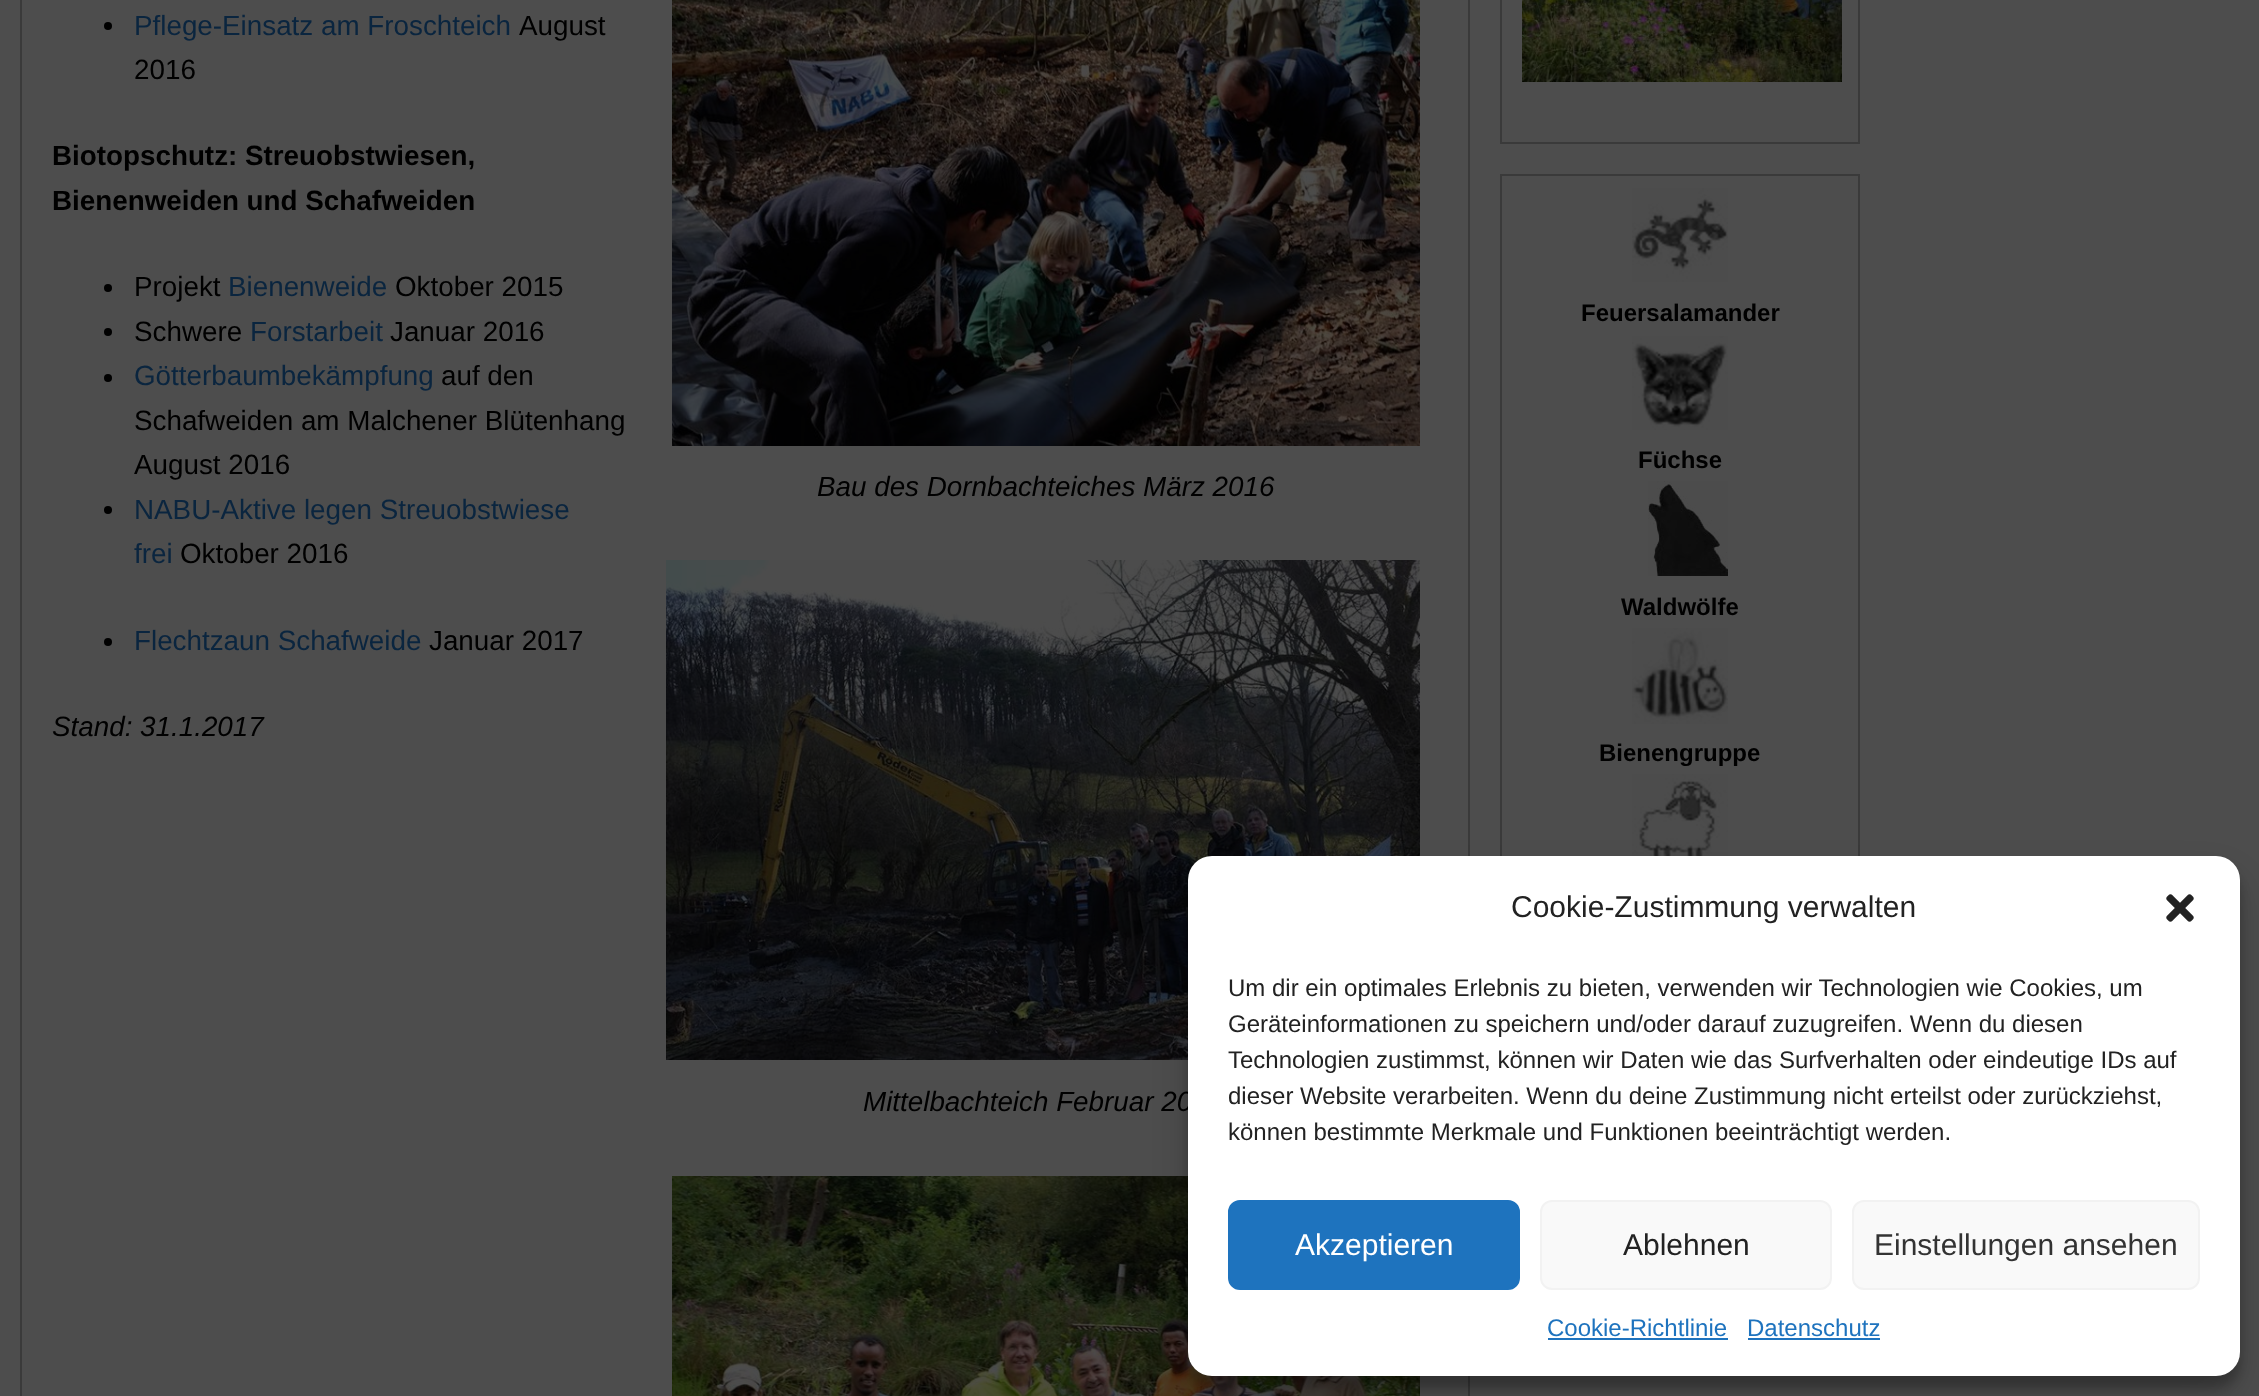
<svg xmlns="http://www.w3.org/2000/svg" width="2259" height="1396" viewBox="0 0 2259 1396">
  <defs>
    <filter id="blur1" x="-50%" y="-200%" width="200%" height="500%"><feGaussianBlur stdDeviation="6"/></filter>
    <filter id="blur2" x="-50%" y="-200%" width="200%" height="500%"><feGaussianBlur stdDeviation="20"/></filter>
  </defs>
  <rect width="100%" height="100%" fill="#4d4d4d"/>
  <rect x="21" y="-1" width="1448" height="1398" fill="none" stroke="#3a3a3a" stroke-width="2"/>
  <circle cx="108" cy="26" r="4" fill="#000000"/>
  <text x="134" y="35" font-family="Liberation Sans" font-size="27.8" fill="#0a253f">Pflege-Einsatz am Froschteich</text>
  <text x="519" y="35" font-family="Liberation Sans" font-size="27.8" fill="#000000">August</text>
  <text x="134" y="79" font-family="Liberation Sans" font-size="27.8" fill="#000000">2016</text>
  <image x="672" y="1176" width="748" height="220" href="img1.png"/>
  <image x="666" y="560" width="754" height="500" href="img2.png"/>
  <text x="863" y="1111" font-family="Liberation Sans" font-size="27.8" font-style="italic" fill="#000000">Mittelbachteich Februar 20</text>
  <text x="52" y="165" font-family="Liberation Sans" font-size="27.8" font-weight="bold" fill="#000000">Biotopschutz: Streuobstwiesen,</text>
  <text x="52" y="210" font-family="Liberation Sans" font-size="27.8" font-weight="bold" fill="#000000">Bienenweiden und Schafweiden</text>
  <circle cx="108" cy="288" r="4" fill="#000000"/>
  <text x="134" y="296" font-family="Liberation Sans" font-size="27.8" fill="#000000">Projekt</text>
  <text x="228" y="296" font-family="Liberation Sans" font-size="27.8" fill="#0a253f">Bienenweide</text>
  <text x="395" y="296" font-family="Liberation Sans" font-size="27.8" fill="#000000">Oktober 2015</text>
  <circle cx="108" cy="332" r="4" fill="#000000"/>
  <text x="134" y="341" font-family="Liberation Sans" font-size="27.8" fill="#000000">Schwere</text>
  <text x="250" y="341" font-family="Liberation Sans" font-size="27.8" fill="#0a253f">Forstarbeit</text>
  <text x="390" y="341" font-family="Liberation Sans" font-size="27.8" fill="#000000">Januar 2016</text>
  <circle cx="108" cy="378" r="4" fill="#000000"/>
  <text x="134" y="385" font-family="Liberation Sans" font-size="27.8" fill="#0a253f">Götterbaumbekämpfung</text>
  <text x="441" y="385" font-family="Liberation Sans" font-size="27.8" fill="#000000">auf den</text>
  <text x="134" y="430" font-family="Liberation Sans" font-size="27.8" fill="#000000">Schafweiden am Malchener Blütenhang</text>
  <text x="134" y="474" font-family="Liberation Sans" font-size="27.8" fill="#000000">August 2016</text>
  <circle cx="108" cy="510" r="4" fill="#000000"/>
  <text x="134" y="519" font-family="Liberation Sans" font-size="27.8" fill="#0a253f">NABU-Aktive legen Streuobstwiese</text>
  <text x="134" y="563" font-family="Liberation Sans" font-size="27.8" fill="#0a253f">frei</text>
  <text x="180" y="563" font-family="Liberation Sans" font-size="27.8" fill="#000000">Oktober 2016</text>
  <circle cx="108" cy="642" r="4" fill="#000000"/>
  <text x="134" y="650" font-family="Liberation Sans" font-size="27.8" fill="#0a253f">Flechtzaun Schafweide</text>
  <text x="429" y="650" font-family="Liberation Sans" font-size="27.8" fill="#000000">Januar 2017</text>
  <image x="672" y="0" width="748" height="446" href="img3.png"/>
  <text x="817" y="496" font-family="Liberation Sans" font-size="27.8" font-style="italic" fill="#000000">Bau des Dornbachteiches März 2016</text>
  <text x="52" y="736" font-family="Liberation Sans" font-size="27.8" font-style="italic" fill="#000000">Stand: 31.1.2017</text>
  <rect x="1501" y="-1" width="358" height="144" fill="none" stroke="#3a3a3a" stroke-width="2"/>
  <image x="1522" y="0" width="320" height="82" href="img4.png"/>
  <rect x="1501" y="175" width="358" height="764" fill="none" stroke="#3a3a3a" stroke-width="2"/>
  <image x="1632" y="188" width="96" height="94" href="img5.png"/>
  <text x="1581" y="321" font-family="Liberation Sans" font-size="24" font-weight="bold" fill="#000000">Feuersalamander</text>
  <image x="1632" y="336" width="96" height="94" href="img6.png"/>
  <text x="1638" y="468" font-family="Liberation Sans" font-size="24" font-weight="bold" fill="#000000">Füchse</text>
  <image x="1648" y="481" width="80" height="95" href="img7.png"/>
  <text x="1621" y="615" font-family="Liberation Sans" font-size="24" font-weight="bold" fill="#000000">Waldwölfe</text>
  <image x="1632" y="628" width="96" height="96" href="img8.png"/>
  <text x="1599" y="761" font-family="Liberation Sans" font-size="24" font-weight="bold" fill="#000000">Bienengruppe</text>
  <image x="1632" y="774" width="96" height="82" href="img9.png"/>
  <rect x="1188" y="868" width="1052" height="520" rx="24" fill="#000000" fill-opacity="0.23" filter="url(#blur1)"/>
  <rect x="1188" y="876" width="1052" height="520" rx="24" fill="#000000" fill-opacity="0.19" filter="url(#blur2)"/>
  <rect x="1188" y="856" width="1052" height="520" rx="24" fill="#ffffff"/>
  <text x="1511" y="917" font-family="Liberation Sans" font-size="30" fill="#222222">Cookie-Zustimmung verwalten</text>
  <image x="2166" y="894" width="28" height="28" href="img10.png"/>
  <text x="1228" y="996" font-family="Liberation Sans" font-size="24" fill="#222222">Um dir ein optimales Erlebnis zu bieten, verwenden wir Technologien wie Cookies, um</text>
  <text x="1228" y="1032" font-family="Liberation Sans" font-size="24" fill="#222222">Geräteinformationen zu speichern und/oder darauf zuzugreifen. Wenn du diesen</text>
  <text x="1228" y="1068" font-family="Liberation Sans" font-size="24" fill="#222222">Technologien zustimmst, können wir Daten wie das Surfverhalten oder eindeutige IDs auf</text>
  <text x="1228" y="1104" font-family="Liberation Sans" font-size="24" fill="#222222">dieser Website verarbeiten. Wenn du deine Zustimmung nicht erteilst oder zurückziehst,</text>
  <text x="1228" y="1140" font-family="Liberation Sans" font-size="24" fill="#222222">können bestimmte Merkmale und Funktionen beeinträchtigt werden.</text>
  <rect x="1229" y="1201" width="290" height="88" rx="11" fill="#1e73be" stroke="#1e73be" stroke-width="2"/>
  <text x="1295" y="1255" font-family="Liberation Sans" font-size="30" fill="#ffffff">Akzeptieren</text>
  <rect x="1541" y="1201" width="290" height="88" rx="11" fill="#f9f9f9" stroke="#f2f2f2" stroke-width="2"/>
  <text x="1623" y="1255" font-family="Liberation Sans" font-size="30" fill="#222222">Ablehnen</text>
  <rect x="1853" y="1201" width="346" height="88" rx="11" fill="#f9f9f9" stroke="#f2f2f2" stroke-width="2"/>
  <text x="1874" y="1255" font-family="Liberation Sans" font-size="30" fill="#333333">Einstellungen ansehen</text>
  <text x="1547" y="1336" font-family="Liberation Sans" font-size="24" fill="#1e73be">Cookie-Richtlinie</text>
  <rect x="1548" y="1338" width="180" height="2" fill="#1e73be"/>
  <text x="1747" y="1336" font-family="Liberation Sans" font-size="24" fill="#1e73be">Datenschutz</text>
  <rect x="1748" y="1338" width="132" height="2" fill="#1e73be"/>
</svg>
